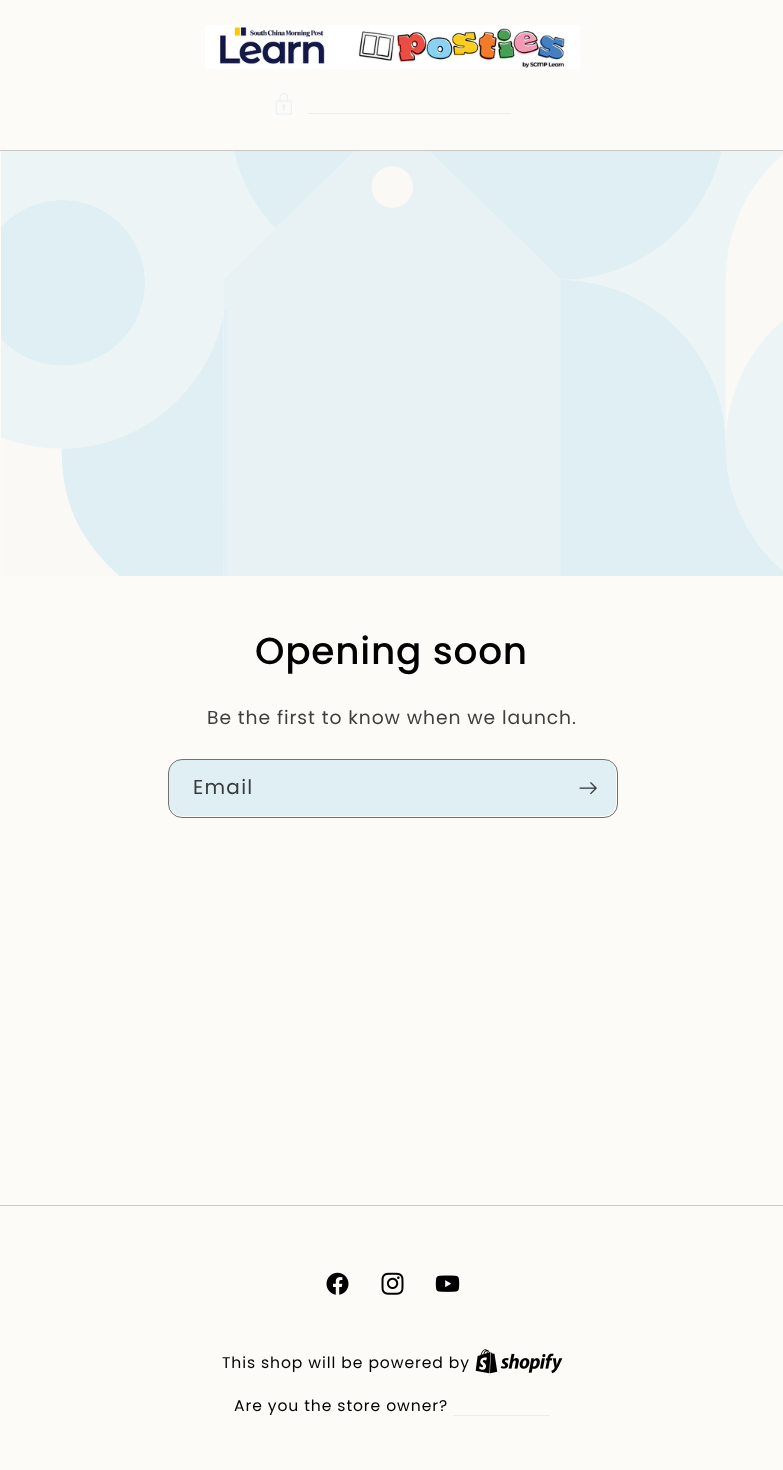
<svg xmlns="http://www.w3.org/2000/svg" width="783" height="1470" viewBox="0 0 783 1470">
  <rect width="100%" height="100%" fill="#fdfbf7"/>
  <image x="205" y="25" width="375" height="44" href="img1.png"/>
  <image x="275" y="93" width="17" height="22" href="img2.png"/>
  <rect x="308" y="113" width="203" height="1" fill="#e4f1f4"/>
  <rect x="0" y="150" width="783" height="1" fill="#cac9c6"/>
  <image x="1" y="151" width="782" height="425" href="img3.png"/>
  <text x="255" y="664" font-family="Poppins" font-size="37.5" font-weight="500" letter-spacing="0.75" fill="#000000">Opening soon</text>
  <text x="207" y="724" font-family="Poppins" font-size="18.75" letter-spacing="0.9" fill="#3f3f3e">Be the first to know when we launch.</text>
  <rect x="169" y="760" width="447" height="56" rx="13" fill="#e0eff4"/>
  <rect x="168.5" y="759.5" width="449" height="58" rx="13.5" fill="none" stroke="#000000" stroke-opacity="0.55"/>
  <text x="193" y="794" font-family="Poppins" font-size="20" letter-spacing="1.25" fill="#383c3d">Email</text>
  <image x="579" y="782" width="18" height="13" href="img4.png"/>
  <rect x="0" y="1205" width="783" height="1" fill="#cac9c6"/>
  <image x="326" y="1272" width="23" height="23" href="img5.png"/>
  <image x="381" y="1272" width="23" height="23" href="img6.png"/>
  <image x="435" y="1275" width="25" height="17" href="img7.png"/>
  <text x="222" y="1368" font-family="Poppins" font-size="15.6" letter-spacing="0.9" fill="#000000">This shop will be powered by</text>
  <image x="475" y="1349" width="88" height="25" href="img8.png"/>
  <text x="234" y="1411" font-family="Poppins" font-size="15.6" letter-spacing="0.9" fill="#000000">Are you the store owner?</text>
  <rect x="453" y="1415" width="97" height="1" fill="#e4f1f4"/>
</svg>
